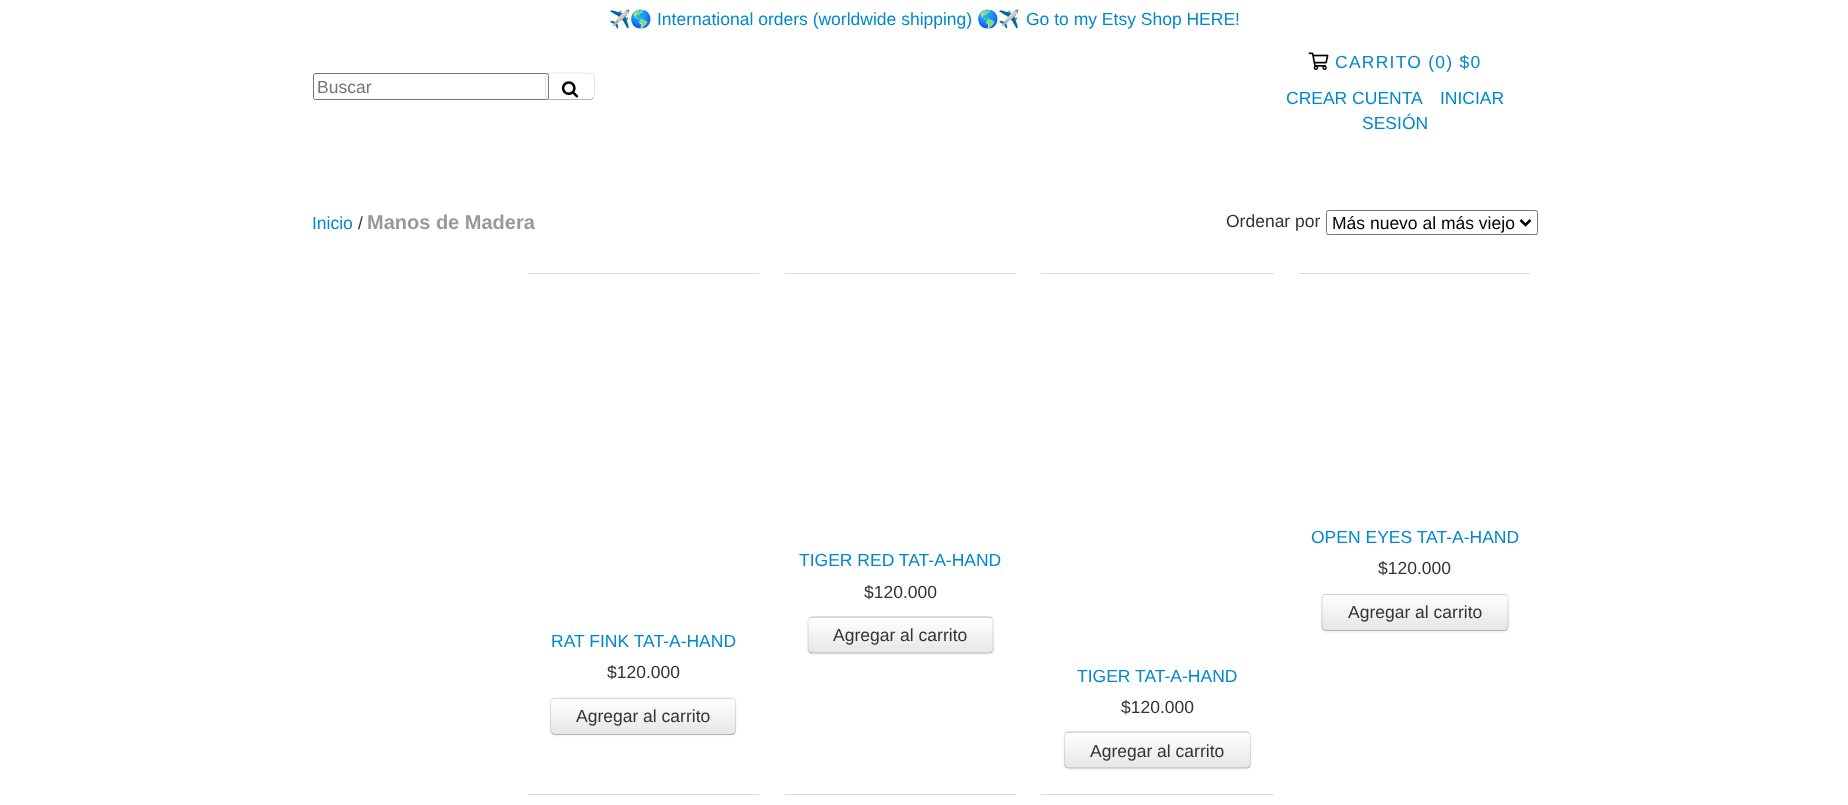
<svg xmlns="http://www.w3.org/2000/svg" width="1848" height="805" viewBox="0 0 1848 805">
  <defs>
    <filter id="blur1" x="-50%" y="-200%" width="200%" height="500%"><feGaussianBlur stdDeviation="1"/></filter>
    <clipPath id="clip1"><rect x="808" y="616" width="186" height="38" rx="5"/></clipPath>
    <linearGradient id="g1" gradientUnits="userSpaceOnUse" x1="901" y1="583" x2="901" y2="618"><stop offset="0" stop-color="#ffffff"/><stop offset="1" stop-color="#e6e6e6"/></linearGradient>
    <linearGradient id="g2" gradientUnits="userSpaceOnUse" x1="901" y1="618" x2="901" y2="653"><stop offset="0" stop-color="#ffffff"/><stop offset="1" stop-color="#e6e6e6"/></linearGradient>
    <linearGradient id="g3" gradientUnits="userSpaceOnUse" x1="901" y1="653" x2="901" y2="688"><stop offset="0" stop-color="#ffffff"/><stop offset="1" stop-color="#e6e6e6"/></linearGradient>
    <clipPath id="clip2"><rect x="1321" y="594" width="188" height="37" rx="5"/></clipPath>
    <linearGradient id="g4" gradientUnits="userSpaceOnUse" x1="1415" y1="560" x2="1415" y2="595"><stop offset="0" stop-color="#ffffff"/><stop offset="1" stop-color="#e6e6e6"/></linearGradient>
    <linearGradient id="g5" gradientUnits="userSpaceOnUse" x1="1415" y1="595" x2="1415" y2="630"><stop offset="0" stop-color="#ffffff"/><stop offset="1" stop-color="#e6e6e6"/></linearGradient>
    <clipPath id="clip3"><rect x="550" y="698" width="186" height="37" rx="5"/></clipPath>
    <linearGradient id="g6" gradientUnits="userSpaceOnUse" x1="643" y1="664" x2="643" y2="699"><stop offset="0" stop-color="#ffffff"/><stop offset="1" stop-color="#e6e6e6"/></linearGradient>
    <linearGradient id="g7" gradientUnits="userSpaceOnUse" x1="643" y1="699" x2="643" y2="734"><stop offset="0" stop-color="#ffffff"/><stop offset="1" stop-color="#e6e6e6"/></linearGradient>
    <clipPath id="clip4"><rect x="1064" y="731" width="187" height="38" rx="5"/></clipPath>
    <linearGradient id="g8" gradientUnits="userSpaceOnUse" x1="1158" y1="698" x2="1158" y2="733"><stop offset="0" stop-color="#ffffff"/><stop offset="1" stop-color="#e6e6e6"/></linearGradient>
    <linearGradient id="g9" gradientUnits="userSpaceOnUse" x1="1158" y1="733" x2="1158" y2="768"><stop offset="0" stop-color="#ffffff"/><stop offset="1" stop-color="#e6e6e6"/></linearGradient>
    <linearGradient id="g10" gradientUnits="userSpaceOnUse" x1="1158" y1="768" x2="1158" y2="803"><stop offset="0" stop-color="#ffffff"/><stop offset="1" stop-color="#e6e6e6"/></linearGradient>
  </defs>
  <rect width="100%" height="100%" fill="#ffffff"/>
  <text x="609" y="25" font-family="Noto Color Emoji" font-size="17.5" fill="#0088cc">✈️🌎</text>
  <text x="657" y="25" font-family="Liberation Sans" font-size="17.5" fill="#0088cc">International orders (worldwide shipping)</text>
  <text x="977" y="25" font-family="Noto Color Emoji" font-size="17.5" fill="#0088cc">🌎✈️</text>
  <text x="1026" y="25" font-family="Liberation Sans" font-size="17.5" fill="#0088cc">Go to my Etsy Shop HERE!</text>
  <rect x="313.5" y="73.5" width="235" height="26" rx="2" fill="none" stroke="#767676"/>
  <text x="317" y="93" font-family="Liberation Sans" font-size="17.5" fill="#757575">Buscar</text>
  <path d="M550 75H590C592 75 594 77 594 79C594 73 588 74 583 74H557C552 74 546 73 546 79C546 77 548 75 550 75Z" fill="#ffffff" fill-opacity="0.2"/>
  <path d="M593 98C592.5 99 591 99.5 590 99.5H550C549 99.5 547.5 99 547 98" fill="none" stroke="#b3b3b3" stroke-width="1.2"/>
  <path d="M547 98C544.5 95.5 545.5 89.5 545.5 86C545.5 74 544 73 556.5 73H583.5C596 73 594.5 74 594.5 86C594.5 89.5 595.5 95.5 593 98" fill="none" stroke="#000000" stroke-opacity="0.1" stroke-width="1.2"/>
  <image x="561" y="81" width="18" height="17" href="img1.png"/>
  <image x="1308" y="52" width="21" height="18" href="img2.png"/>
  <text x="1335" y="68" font-family="Liberation Sans" font-size="17.5" letter-spacing="1.25" fill="#0088cc">CARRITO (0) $0</text>
  <text x="1286" y="104" font-family="Liberation Sans" font-size="17.5" fill="#0088cc">CREAR CUENTA</text>
  <text x="1440" y="104" font-family="Liberation Sans" font-size="17.5" fill="#0088cc">INICIAR</text>
  <text x="1362" y="129" font-family="Liberation Sans" font-size="17.5" fill="#0088cc">SESIÓN</text>
  <text x="312" y="229" font-family="Liberation Sans" font-size="17.5" fill="#0088cc">Inicio</text>
  <text x="358" y="229" font-family="Liberation Sans" font-size="17.5" fill="#333333">/</text>
  <text x="367" y="229" font-family="Liberation Sans" font-size="20" font-weight="bold" fill="#999999">Manos de Madera</text>
  <text x="1226" y="227" font-family="Liberation Sans" font-size="17.5" fill="#333333">Ordenar por</text>
  <rect x="1326.5" y="210.5" width="211" height="24" rx="2" fill="none" stroke="#767676"/>
  <path d="M1520.5 220L1525.5 225L1530.5 220" fill="none" stroke="#000000" stroke-width="2.5"/>
  <text x="1332" y="229" font-family="Liberation Sans" font-size="17.5" fill="#000000">Más nuevo al más viejo</text>
  <rect x="785" y="273" width="231" height="1" fill="#dcdcdc"/>
  <text x="799" y="566" font-family="Liberation Sans" font-size="17.5" fill="#0088cc">TIGER RED TAT-A-HAND</text>
  <text x="864" y="598" font-family="Liberation Sans" font-size="17.5" fill="#333333">$120.000</text>
  <rect x="808" y="618" width="186" height="37" rx="5" fill="#000000" fill-opacity="0.05" filter="url(#blur1)"/>
  <g clip-path="url(#clip1)">
    <rect x="808" y="616" width="186" height="2" fill="url(#g1)"/>
    <rect x="808" y="618" width="186" height="35" fill="url(#g2)"/>
    <rect x="808" y="653" width="186" height="1" fill="url(#g3)"/>
  </g>
  <path d="M812 619H989C991 619 992 620 992 622V652C992 651 993 650 993 649V622C993 620 991 618 989 618H813C812 618 810 619 810 620Z" fill="#ffffff" fill-opacity="0.2"/>
  <path d="M992 652C991 652.5 990 653 989 653H812.5C811.5 653 810 652.5 809.5 652" fill="none" stroke="#b3b3b3" stroke-width="1.2"/>
  <path d="M809.5 652C808.5 651 808 650 808 649V621C808 620 808.5 619 809.5 618C810 617.5 811.5 617 812.5 617H989C990 617 991 617.5 992 618C992.5 619 993 620 993 621V649C993 650 992.5 651 992 652" fill="none" stroke="#000000" stroke-opacity="0.1" stroke-width="1.2"/>
  <text x="833" y="641" font-family="Liberation Sans" font-size="17.5" fill="#333333">Agregar al carrito</text>
  <rect x="1299" y="273" width="231" height="1" fill="#dcdcdc"/>
  <text x="1311" y="543" font-family="Liberation Sans" font-size="17.5" fill="#0088cc">OPEN EYES TAT-A-HAND</text>
  <text x="1378" y="574" font-family="Liberation Sans" font-size="17.5" fill="#333333">$120.000</text>
  <rect x="1321" y="595" width="188" height="38" rx="5" fill="#000000" fill-opacity="0.05" filter="url(#blur1)"/>
  <g clip-path="url(#clip2)">
    <rect x="1321" y="594" width="188" height="1" fill="url(#g4)"/>
    <rect x="1321" y="595" width="188" height="35" fill="url(#g5)"/>
  </g>
  <path d="M1507 629.5C1506 630 1505 630.5 1504 630.5H1326C1325 630.5 1324 630 1323 629.5" fill="none" stroke="#b3b3b3" stroke-width="1.2"/>
  <path d="M1323 629.5C1322.5 628.5 1322 627.5 1322 626V599C1322 597.5 1322.5 596.5 1323 595.5C1324 595 1325 594.5 1326 594.5H1504C1505 594.5 1506 595 1507 595.5C1507.5 596.5 1508 597.5 1508 599V626C1508 627.5 1507.5 628.5 1507 629.5" fill="none" stroke="#000000" stroke-opacity="0.1" stroke-width="1.2"/>
  <text x="1348" y="618" font-family="Liberation Sans" font-size="17.5" fill="#333333">Agregar al carrito</text>
  <rect x="528" y="273" width="231" height="1" fill="#dcdcdc"/>
  <text x="551" y="647" font-family="Liberation Sans" font-size="17.5" fill="#0088cc">RAT FINK TAT-A-HAND</text>
  <text x="607" y="678" font-family="Liberation Sans" font-size="17.5" fill="#333333">$120.000</text>
  <rect x="550" y="699" width="186" height="37" rx="5" fill="#000000" fill-opacity="0.05" filter="url(#blur1)"/>
  <g clip-path="url(#clip3)">
    <rect x="550" y="698" width="186" height="1" fill="url(#g6)"/>
    <rect x="550" y="699" width="186" height="35" fill="url(#g7)"/>
  </g>
  <path d="M734.5 733C733.5 734 732.5 734.5 731 734.5H555C554 734.5 552.5 734 552 733" fill="none" stroke="#b3b3b3" stroke-width="1.2"/>
  <path d="M552 733C551 732.5 550.5 731 550.5 730V702.5C550.5 701.5 551 700 552 699.5C552.5 698.5 554 698 555 698H731C732.5 698 733.5 698.5 734.5 699.5C735 700 735.5 701.5 735.5 702.5V730C735.5 731 735 732.5 734.5 733" fill="none" stroke="#000000" stroke-opacity="0.1" stroke-width="1.2"/>
  <text x="576" y="722" font-family="Liberation Sans" font-size="17.5" fill="#333333">Agregar al carrito</text>
  <rect x="1041" y="273" width="233" height="1" fill="#dcdcdc"/>
  <text x="1077" y="682" font-family="Liberation Sans" font-size="17.5" fill="#0088cc">TIGER TAT-A-HAND</text>
  <text x="1121" y="713" font-family="Liberation Sans" font-size="17.5" fill="#333333">$120.000</text>
  <rect x="1064" y="733" width="187" height="37" rx="5" fill="#000000" fill-opacity="0.05" filter="url(#blur1)"/>
  <g clip-path="url(#clip4)">
    <rect x="1064" y="731" width="187" height="2" fill="url(#g8)"/>
    <rect x="1064" y="733" width="187" height="35" fill="url(#g9)"/>
    <rect x="1064" y="768" width="187" height="1" fill="url(#g10)"/>
  </g>
  <path d="M1249.5 767C1248.5 767.5 1247.5 768 1246 768H1069C1067.5 768 1066.5 767.5 1065.5 767" fill="none" stroke="#b3b3b3" stroke-width="1.2"/>
  <path d="M1065.5 767C1065 766 1064.5 765 1064.5 764V736C1064.5 735 1065 734 1065.5 733C1066.5 732.5 1067.5 732 1069 732H1246C1247.5 732 1248.5 732.5 1249.5 733C1250 734 1250.5 735 1250.5 736V764C1250.5 765 1250 766 1249.5 767" fill="none" stroke="#000000" stroke-opacity="0.1" stroke-width="1.2"/>
  <text x="1090" y="757" font-family="Liberation Sans" font-size="17.5" fill="#333333">Agregar al carrito</text>
  <rect x="528" y="794" width="231" height="1" fill="#dcdcdc"/>
  <rect x="785" y="794" width="231" height="1" fill="#dcdcdc"/>
  <rect x="1041" y="794" width="233" height="1" fill="#dcdcdc"/>
</svg>
